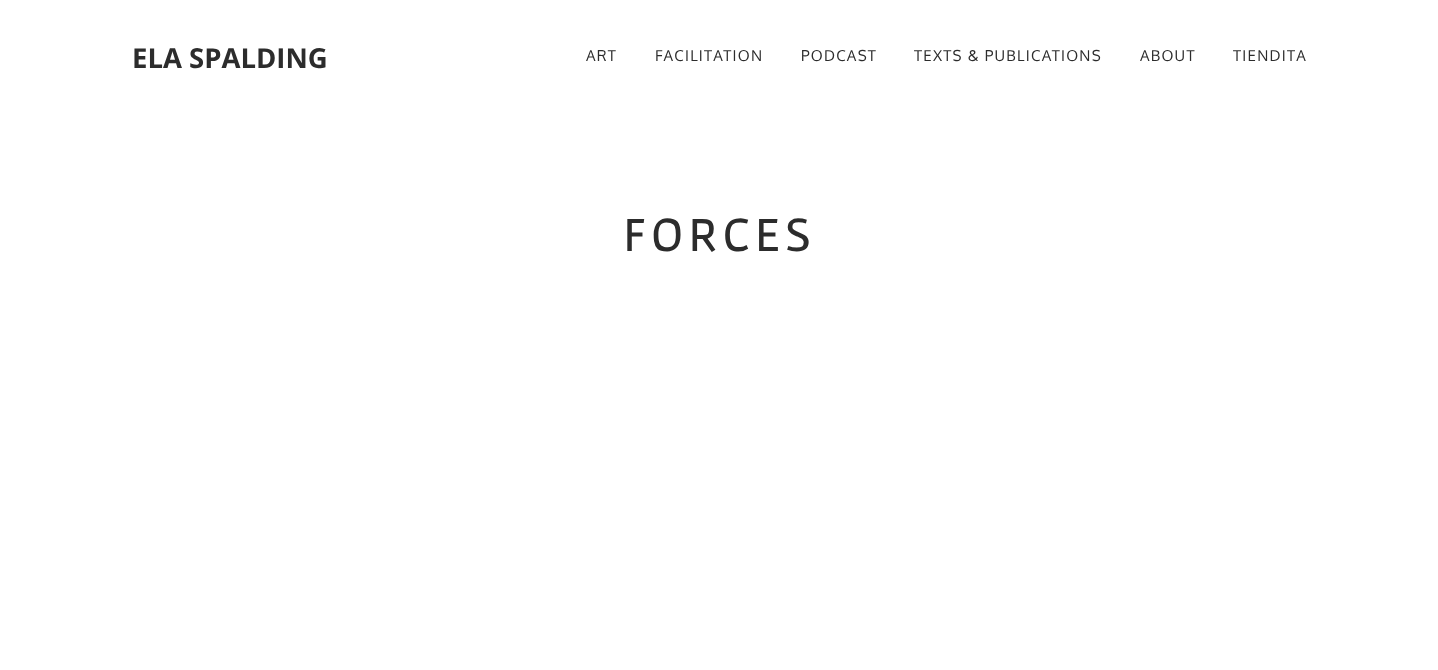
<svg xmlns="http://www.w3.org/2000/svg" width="1438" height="670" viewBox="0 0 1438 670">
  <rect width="100%" height="100%" fill="#ffffff"/>
  <text x="132" y="68" font-family="Open Sans" font-size="27.5" font-weight="bold" fill="#2c2c2c">ELA SPALDING</text>
  <text x="586" y="61" font-family="Oxygen" font-size="15" letter-spacing="1.25" fill="#2c2c2c">ART</text>
  <text x="655" y="61" font-family="Oxygen" font-size="15" letter-spacing="1.25" fill="#2c2c2c">FACILITATION</text>
  <text x="801" y="61" font-family="Oxygen" font-size="15" letter-spacing="1.25" fill="#2c2c2c">PODCAST</text>
  <text x="914" y="61" font-family="Oxygen" font-size="15" letter-spacing="1.25" fill="#2c2c2c">TEXTS &amp; PUBLICATIONS</text>
  <text x="1140" y="61" font-family="Oxygen" font-size="15" letter-spacing="1.25" fill="#2c2c2c">ABOUT</text>
  <text x="1233" y="61" font-family="Oxygen" font-size="15" letter-spacing="1.25" fill="#2c2c2c">TIENDITA</text>
  <text x="623" y="251" font-family="Gafata" font-size="47.5" font-weight="bold" letter-spacing="6.25" fill="#2c2c2c">FORCES</text>
</svg>
